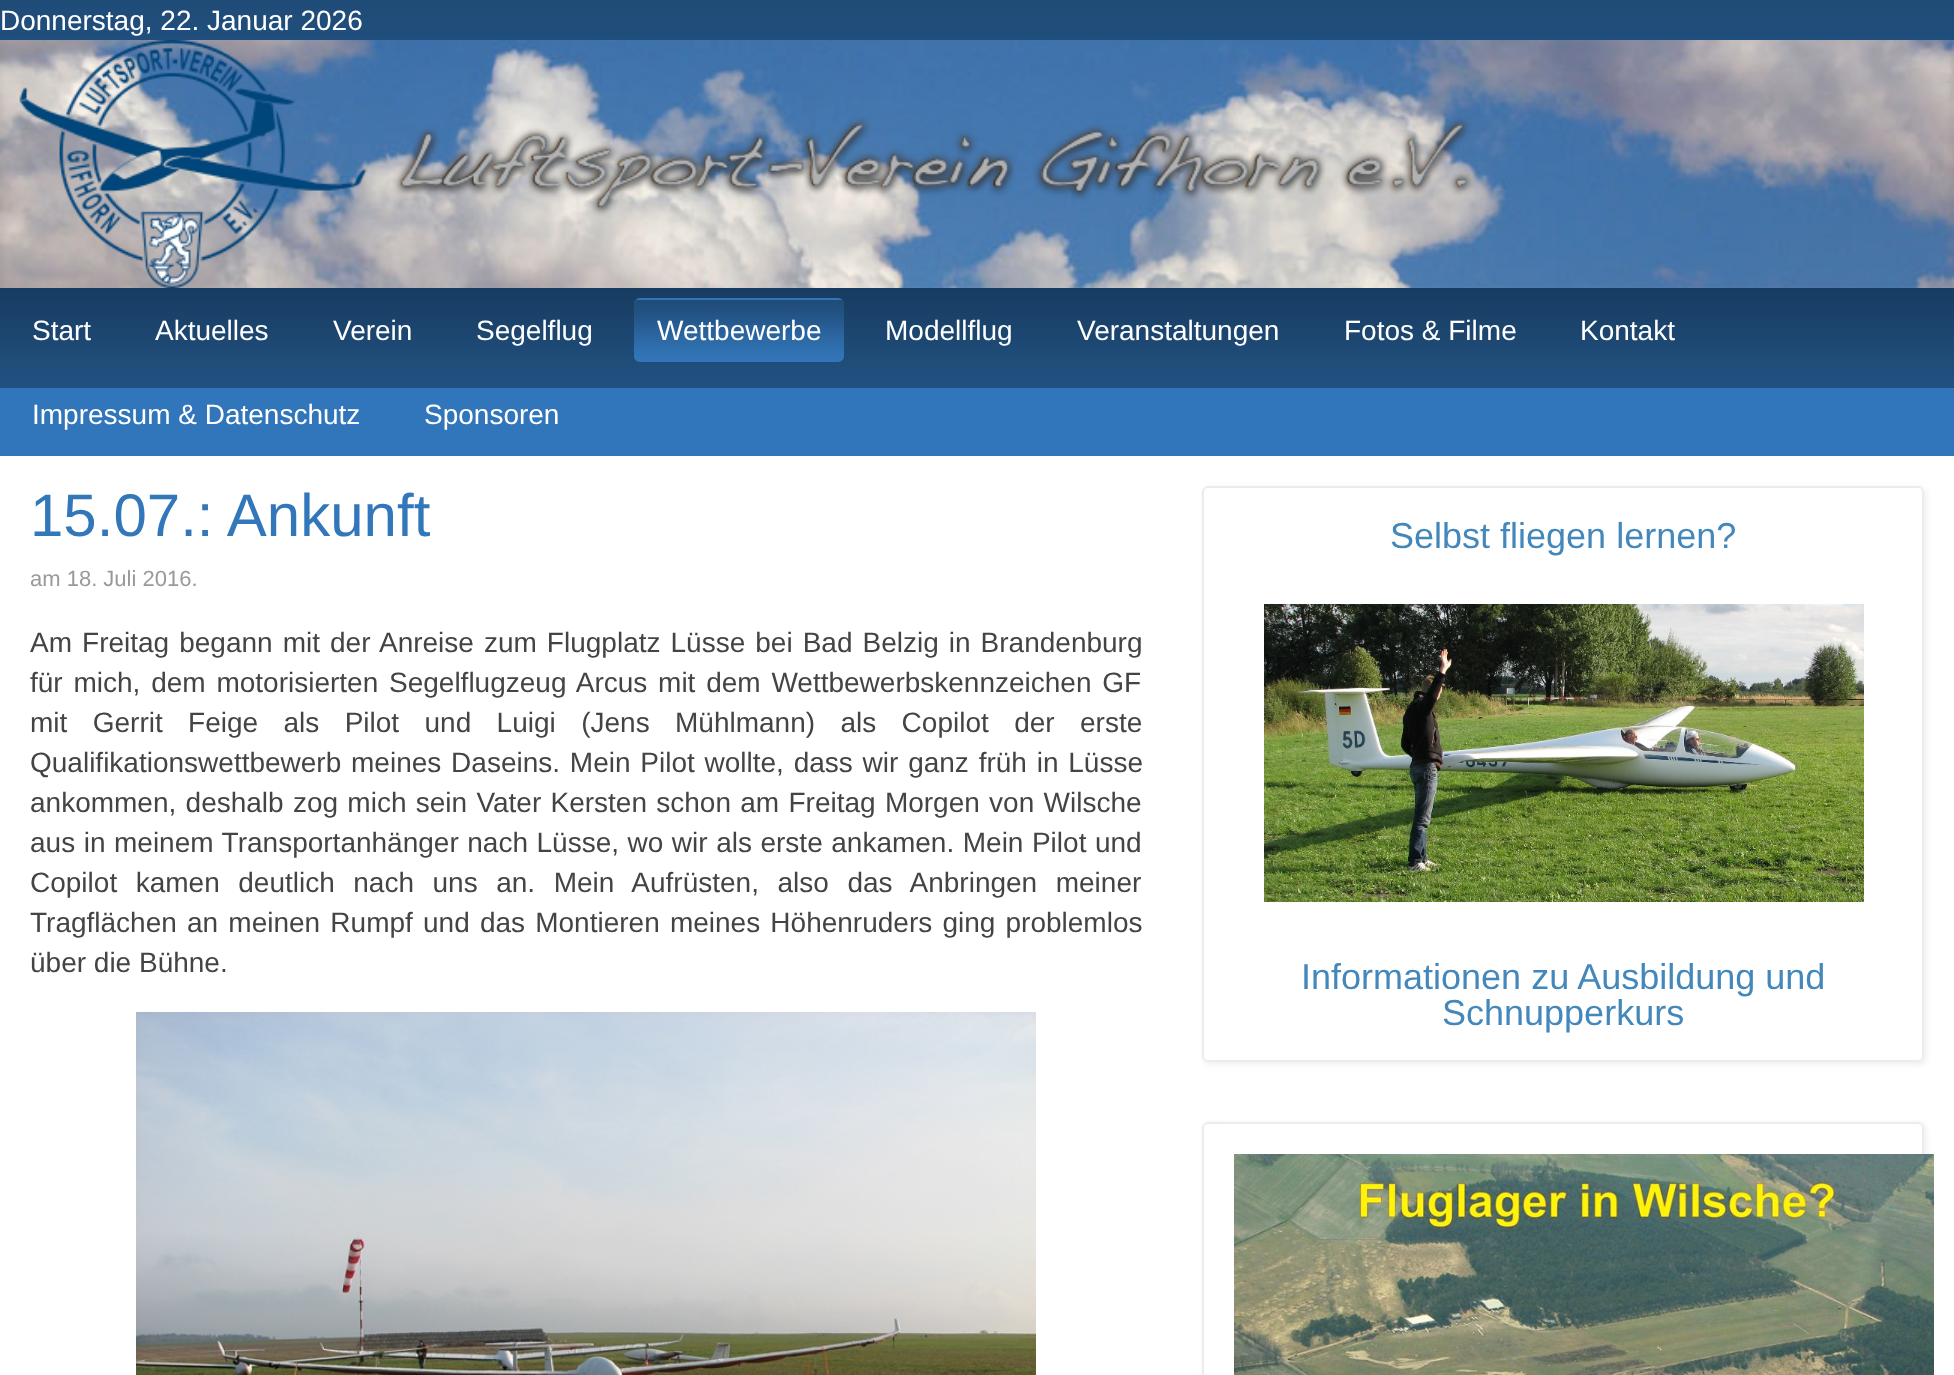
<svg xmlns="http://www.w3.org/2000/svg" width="1954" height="1375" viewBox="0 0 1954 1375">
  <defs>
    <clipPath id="clip1"><path d="M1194 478H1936V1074H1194ZM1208 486H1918C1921.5 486 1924 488.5 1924 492V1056C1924 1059.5 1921.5 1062 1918 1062H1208C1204.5 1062 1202 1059.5 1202 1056V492C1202 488.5 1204.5 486 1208 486Z" clip-rule="evenodd"/></clipPath>
    <filter id="blur1" x="-50%" y="-200%" width="200%" height="500%"><feGaussianBlur stdDeviation="3"/></filter>
    <clipPath id="clip2"><path d="M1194 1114H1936V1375H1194ZM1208 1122H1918C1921.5 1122 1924 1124.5 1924 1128V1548C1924 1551.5 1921.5 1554 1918 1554H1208C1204.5 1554 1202 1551.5 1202 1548V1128C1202 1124.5 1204.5 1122 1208 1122Z" clip-rule="evenodd"/></clipPath>
  </defs>
  <rect width="100%" height="100%" fill="#ffffff"/>
  <image x="0" y="0" width="1954" height="40" href="img1.png"/>
  <text x="0" y="30" font-family="Liberation Sans" font-size="28" fill="#ffffff">Donnerstag, 22. Januar 2026</text>
  <image x="0" y="40" width="1954" height="248" href="img2.png"/>
  <rect x="0" y="388" width="1954" height="68" fill="#3175ba"/>
  <image x="0" y="288" width="1954" height="100" href="img3.png"/>
  <text x="32" y="340" font-family="Liberation Sans" font-size="28" fill="#ffffff">Start</text>
  <text x="155" y="340" font-family="Liberation Sans" font-size="28" fill="#ffffff">Aktuelles</text>
  <text x="333" y="340" font-family="Liberation Sans" font-size="28" fill="#ffffff">Verein</text>
  <text x="476" y="340" font-family="Liberation Sans" font-size="28" fill="#ffffff">Segelflug</text>
  <rect x="634" y="298" width="210" height="64" rx="6" fill="#3276b9"/>
  <image x="634" y="300" width="210" height="60" href="img4.png"/>
  <text x="657" y="340" font-family="Liberation Sans" font-size="28" fill="#ffffff">Wettbewerbe</text>
  <text x="885" y="340" font-family="Liberation Sans" font-size="28" fill="#ffffff">Modellflug</text>
  <text x="1077" y="340" font-family="Liberation Sans" font-size="28" fill="#ffffff">Veranstaltungen</text>
  <text x="1344" y="340" font-family="Liberation Sans" font-size="28" fill="#ffffff">Fotos &amp; Filme</text>
  <text x="1580" y="340" font-family="Liberation Sans" font-size="28" fill="#ffffff">Kontakt</text>
  <text x="32" y="424" font-family="Liberation Sans" font-size="28" fill="#ffffff">Impressum &amp; Datenschutz</text>
  <text x="424" y="424" font-family="Liberation Sans" font-size="28" fill="#ffffff">Sponsoren</text>
  <text x="30" y="536" font-family="Liberation Sans" font-size="60" fill="#3377bb">15.07.: Ankunft</text>
  <text x="30" y="586" font-family="Liberation Sans" font-size="22" fill="#999999">am 18. Juli 2016.</text>
  <text x="30" y="652" word-spacing="2.25" font-family="Liberation Sans" font-size="28" fill="#444444">Am Freitag begann mit der Anreise zum Flugplatz Lüsse bei Bad Belzig in Brandenburg</text>
  <text x="30" y="692" word-spacing="3" font-family="Liberation Sans" font-size="28" fill="#444444">für mich, dem motorisierten Segelflugzeug Arcus mit dem Wettbewerbskennzeichen GF</text>
  <text x="30" y="732" word-spacing="17.6" font-family="Liberation Sans" font-size="28" fill="#444444">mit Gerrit Feige als Pilot und Luigi (Jens Mühlmann) als Copilot der erste</text>
  <text x="30" y="772" word-spacing="2" font-family="Liberation Sans" font-size="28" fill="#444444">Qualifikationswettbewerb meines Daseins. Mein Pilot wollte, dass wir ganz früh in Lüsse</text>
  <text x="30" y="812" word-spacing="1.5" font-family="Liberation Sans" font-size="28" fill="#444444">ankommen, deshalb zog mich sein Vater Kersten schon am Freitag Morgen von Wilsche</text>
  <text x="30" y="852" word-spacing="0.75" font-family="Liberation Sans" font-size="28" fill="#444444">aus in meinem Transportanhänger nach Lüsse, wo wir als erste ankamen. Mein Pilot und</text>
  <text x="30" y="892" word-spacing="10.75" font-family="Liberation Sans" font-size="28" fill="#444444">Copilot kamen deutlich nach uns an. Mein Aufrüsten, also das Anbringen meiner</text>
  <text x="30" y="932" word-spacing="2.4" font-family="Liberation Sans" font-size="28" fill="#444444">Tragflächen an meinen Rumpf und das Montieren meines Höhenruders ging problemlos</text>
  <text x="30" y="972" font-family="Liberation Sans" font-size="28" fill="#444444">über die Bühne.</text>
  <image x="136" y="1012" width="900" height="363" href="img5.png"/>
  <g clip-path="url(#clip1)">
    <rect x="1204" y="488" width="722" height="576" rx="6" fill="#ececec" filter="url(#blur1)"/>
  </g>
  <rect x="1203" y="487" width="720" height="574" rx="5" fill="none" stroke="#ececec" stroke-width="2"/>
  <text x="1390" y="548" font-family="Liberation Sans" font-size="36" fill="#4488bb">Selbst fliegen lernen?</text>
  <image x="1264" y="604" width="600" height="298" href="img6.png"/>
  <text x="1301" y="989" font-family="Liberation Sans" font-size="36" fill="#4488bb">Informationen zu Ausbildung und</text>
  <text x="1442" y="1025" font-family="Liberation Sans" font-size="36" fill="#4488bb">Schnupperkurs</text>
  <g clip-path="url(#clip2)">
    <rect x="1204" y="1124" width="722" height="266" rx="6" fill="#ececec" filter="url(#blur1)"/>
  </g>
  <rect x="1203" y="1123" width="720" height="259" rx="5" fill="none" stroke="#ececec" stroke-width="2"/>
  <image x="1234" y="1154" width="700" height="221" href="img7.png"/>
</svg>
